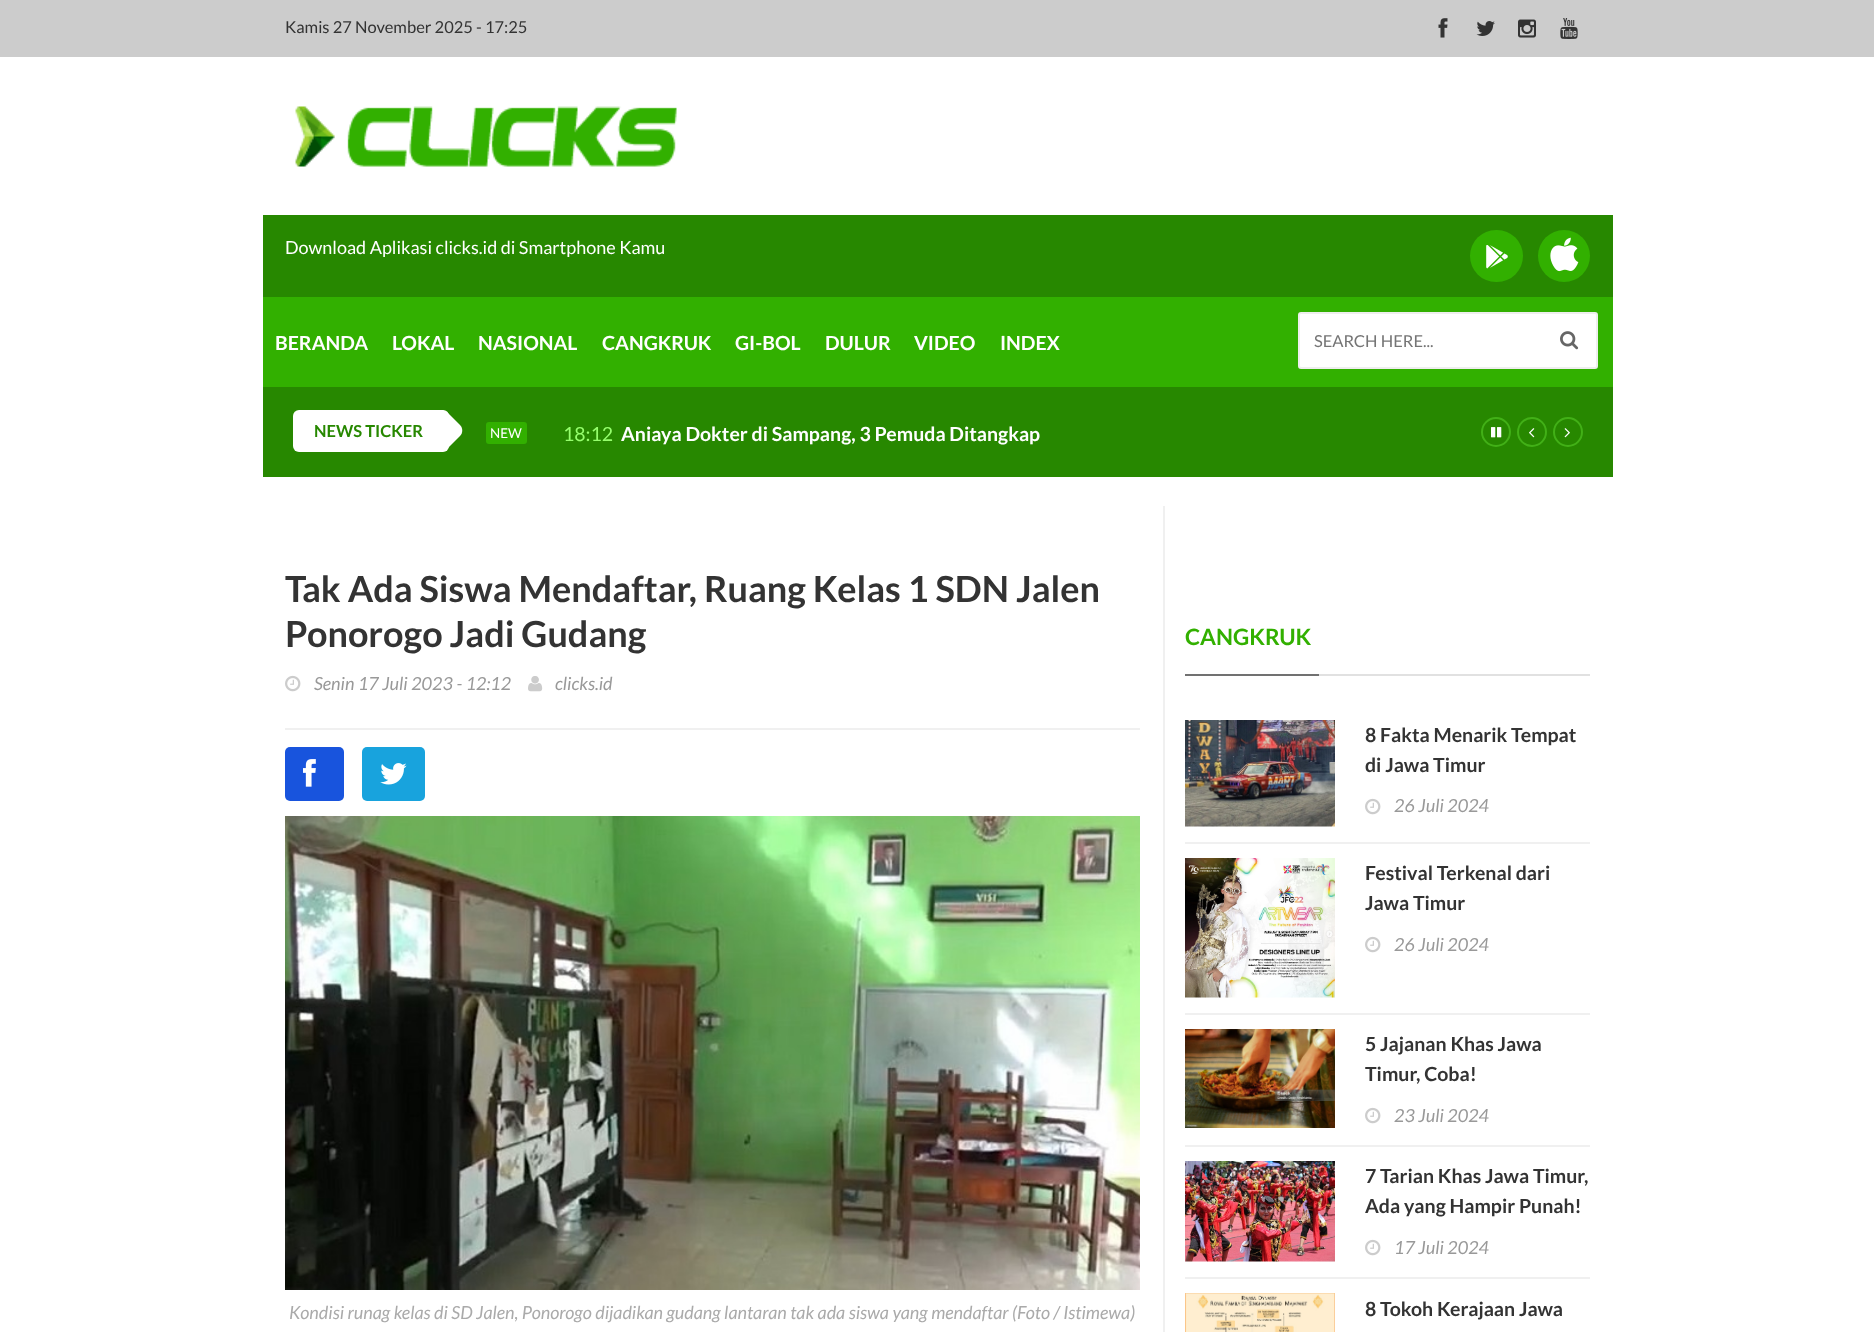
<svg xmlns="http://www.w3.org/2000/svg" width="1874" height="1332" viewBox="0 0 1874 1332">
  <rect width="100%" height="100%" fill="#ffffff"/>
  <rect x="0" y="0" width="1874" height="57" fill="#cccccc"/>
  <text x="285" y="33" font-family="Lato" font-size="16.5" fill="#333333">Kamis 27 November 2025 - 17:25</text>
  <image x="1438" y="18" width="10" height="20" href="img1.png"/>
  <image x="1476" y="21" width="19" height="15" href="img2.png"/>
  <image x="1518" y="19" width="18" height="19" href="img3.png"/>
  <image x="1560" y="18" width="18" height="21" href="img4.png"/>
  <image x="295" y="106" width="382" height="61" href="img5.png"/>
  <rect x="263" y="215" width="1350" height="82" fill="#278800"/>
  <text x="285" y="254" font-family="Lato" font-size="18" fill="#ffffff">Download Aplikasi clicks.id di Smartphone Kamu</text>
  <rect x="1470" y="230" width="53" height="52" rx="26" fill="#32b000"/>
  <image x="1486" y="245" width="22" height="24" href="img6.png"/>
  <circle cx="1564" cy="256" r="26" fill="#32b000"/>
  <image x="1550" y="237" width="29" height="35" href="img7.png"/>
  <rect x="263" y="297" width="1350" height="90" fill="#32b000"/>
  <text x="275" y="350" font-family="Lato" font-size="19.5" font-weight="bold" fill="#ffffff">BERANDA</text>
  <text x="392" y="350" font-family="Lato" font-size="19.5" font-weight="bold" fill="#ffffff">LOKAL</text>
  <text x="478" y="350" font-family="Lato" font-size="19.5" font-weight="bold" fill="#ffffff">NASIONAL</text>
  <text x="602" y="350" font-family="Lato" font-size="19.5" font-weight="bold" fill="#ffffff">CANGKRUK</text>
  <text x="735" y="350" font-family="Lato" font-size="19.5" font-weight="bold" fill="#ffffff">GI-BOL</text>
  <text x="825" y="350" font-family="Lato" font-size="19.5" font-weight="bold" fill="#ffffff">DULUR</text>
  <text x="914" y="350" font-family="Lato" font-size="19.5" font-weight="bold" fill="#ffffff">VIDEO</text>
  <text x="1000" y="350" font-family="Lato" font-size="19.5" font-weight="bold" fill="#ffffff">INDEX</text>
  <rect x="1299" y="313" width="298" height="55" rx="2" fill="#ffffff" stroke="#eeeeee" stroke-width="2"/>
  <text x="1314" y="347" font-family="Lato" font-size="16.5" fill="#757575">SEARCH HERE...</text>
  <image x="1560" y="331" width="19" height="19" href="img8.png"/>
  <rect x="263" y="387" width="1350" height="90" fill="#278800"/>
  <rect x="293" y="410" width="156" height="42" rx="6" fill="#ffffff"/>
  <text x="314" y="437" font-family="Lato" font-size="16.5" font-weight="bold" fill="#278800">NEWS TICKER</text>
  <path d="M447 412L460 425C463 428 463 433 460 436L447 449C444 451 440 451 437 449L424 436C421 433 421 428 424 425L437 412C440 410 444 410 447 412Z" fill="#ffffff"/>
  <rect x="486" y="422" width="41" height="22" rx="3" fill="#32b000"/>
  <text x="490" y="438" font-family="Lato" font-size="13.5" fill="#ffffff">NEW</text>
  <text x="563" y="441" font-family="Lato" font-size="19.5" fill="#96ff6d">18:12</text>
  <text x="621" y="441" font-family="Lato" font-size="19.5" font-weight="bold" fill="#ffffff">Aniaya Dokter di Sampang, 3 Pemuda Ditangkap</text>
  <circle cx="1496" cy="432" r="14" fill="none" stroke="#42b017" stroke-width="2"/>
  <image x="1491" y="427" width="11" height="11" href="img9.png"/>
  <circle cx="1532" cy="432" r="14" fill="none" stroke="#42b017" stroke-width="2"/>
  <image x="1529" y="428" width="6" height="10" href="img10.png"/>
  <circle cx="1568" cy="432" r="14" fill="none" stroke="#42b017" stroke-width="2"/>
  <image x="1564" y="428" width="6" height="10" href="img11.png"/>
  <rect x="285" y="728" width="855" height="2" fill="#f0f0f0"/>
  <text x="285" y="602" font-family="Lato" font-size="36" font-weight="bold" fill="#333333">Tak Ada Siswa Mendaftar, Ruang Kelas 1 SDN Jalen</text>
  <text x="285" y="647" font-family="Lato" font-size="36" font-weight="bold" fill="#333333">Ponorogo Jadi Gudang</text>
  <image x="285" y="675" width="16" height="17" href="img12.png"/>
  <text x="314" y="690" font-family="Lato" font-size="18" font-style="italic" fill="#999999">Senin 17 Juli 2023 - 12:12</text>
  <image x="528" y="676" width="15" height="16" href="img13.png"/>
  <text x="555" y="690" font-family="Lato" font-size="18" font-style="italic" fill="#999999">clicks.id</text>
  <rect x="285" y="747" width="59" height="54" rx="5" fill="#1854dd"/>
  <image x="303" y="759" width="13" height="28" href="img14.png"/>
  <rect x="362" y="747" width="63" height="54" rx="5" fill="#18a3dd"/>
  <image x="380" y="763" width="27" height="22" href="img15.png"/>
  <image x="285" y="816" width="855" height="474" href="img16.png"/>
  <text x="289" y="1319" font-family="Lato" font-size="18" font-style="italic" fill="#aaaaaa">Kondisi runag kelas di SD Jalen, Ponorogo dijadikan gudang lantaran tak ada siswa yang mendaftar (Foto / Istimewa)</text>
  <rect x="1163" y="506" width="2" height="826" fill="#f0f0f0"/>
  <rect x="1319" y="674" width="271" height="2" fill="#e1e1e1"/>
  <rect x="1185" y="674" width="134" height="2" fill="#717171"/>
  <text x="1185" y="645" font-family="Lato" font-size="22.5" font-weight="bold" fill="#32b000">CANGKRUK</text>
  <rect x="1185" y="842" width="405" height="2" fill="#f0f0f0"/>
  <image x="1185" y="720" width="150" height="107" href="img17.png"/>
  <text x="1365" y="742" font-family="Lato" font-size="19.5" font-weight="bold" fill="#333333">8 Fakta Menarik Tempat</text>
  <text x="1365" y="772" font-family="Lato" font-size="19.5" font-weight="bold" fill="#333333">di Jawa Timur</text>
  <image x="1365" y="798" width="16" height="17" href="img12.png"/>
  <text x="1394" y="812" font-family="Lato" font-size="18" font-style="italic" fill="#999999">26 Juli 2024</text>
  <rect x="1185" y="1013" width="405" height="2" fill="#f0f0f0"/>
  <image x="1185" y="858" width="150" height="140" href="img18.png"/>
  <text x="1365" y="880" font-family="Lato" font-size="19.5" font-weight="bold" fill="#333333">Festival Terkenal dari</text>
  <text x="1365" y="910" font-family="Lato" font-size="19.5" font-weight="bold" fill="#333333">Jawa Timur</text>
  <image x="1365" y="936" width="16" height="17" href="img12.png"/>
  <text x="1394" y="951" font-family="Lato" font-size="18" font-style="italic" fill="#999999">26 Juli 2024</text>
  <rect x="1185" y="1145" width="405" height="2" fill="#f0f0f0"/>
  <image x="1185" y="1029" width="150" height="99" href="img19.png"/>
  <text x="1365" y="1051" font-family="Lato" font-size="19.5" font-weight="bold" fill="#333333">5 Jajanan Khas Jawa</text>
  <text x="1365" y="1081" font-family="Lato" font-size="19.5" font-weight="bold" fill="#333333">Timur, Coba!</text>
  <image x="1365" y="1107" width="16" height="17" href="img12.png"/>
  <text x="1394" y="1122" font-family="Lato" font-size="18" font-style="italic" fill="#999999">23 Juli 2024</text>
  <rect x="1185" y="1277" width="405" height="2" fill="#f0f0f0"/>
  <image x="1185" y="1161" width="150" height="101" href="img20.png"/>
  <text x="1365" y="1183" font-family="Lato" font-size="19.5" font-weight="bold" fill="#333333">7 Tarian Khas Jawa Timur,</text>
  <text x="1365" y="1213" font-family="Lato" font-size="19.5" font-weight="bold" fill="#333333">Ada yang Hampir Punah!</text>
  <image x="1365" y="1239" width="16" height="17" href="img12.png"/>
  <text x="1394" y="1254" font-family="Lato" font-size="18" font-style="italic" fill="#999999">17 Juli 2024</text>
  <image x="1185" y="1293" width="150" height="39" href="img21.png"/>
  <text x="1365" y="1316" font-family="Lato" font-size="19.5" font-weight="bold" fill="#333333">8 Tokoh Kerajaan Jawa</text>
</svg>
